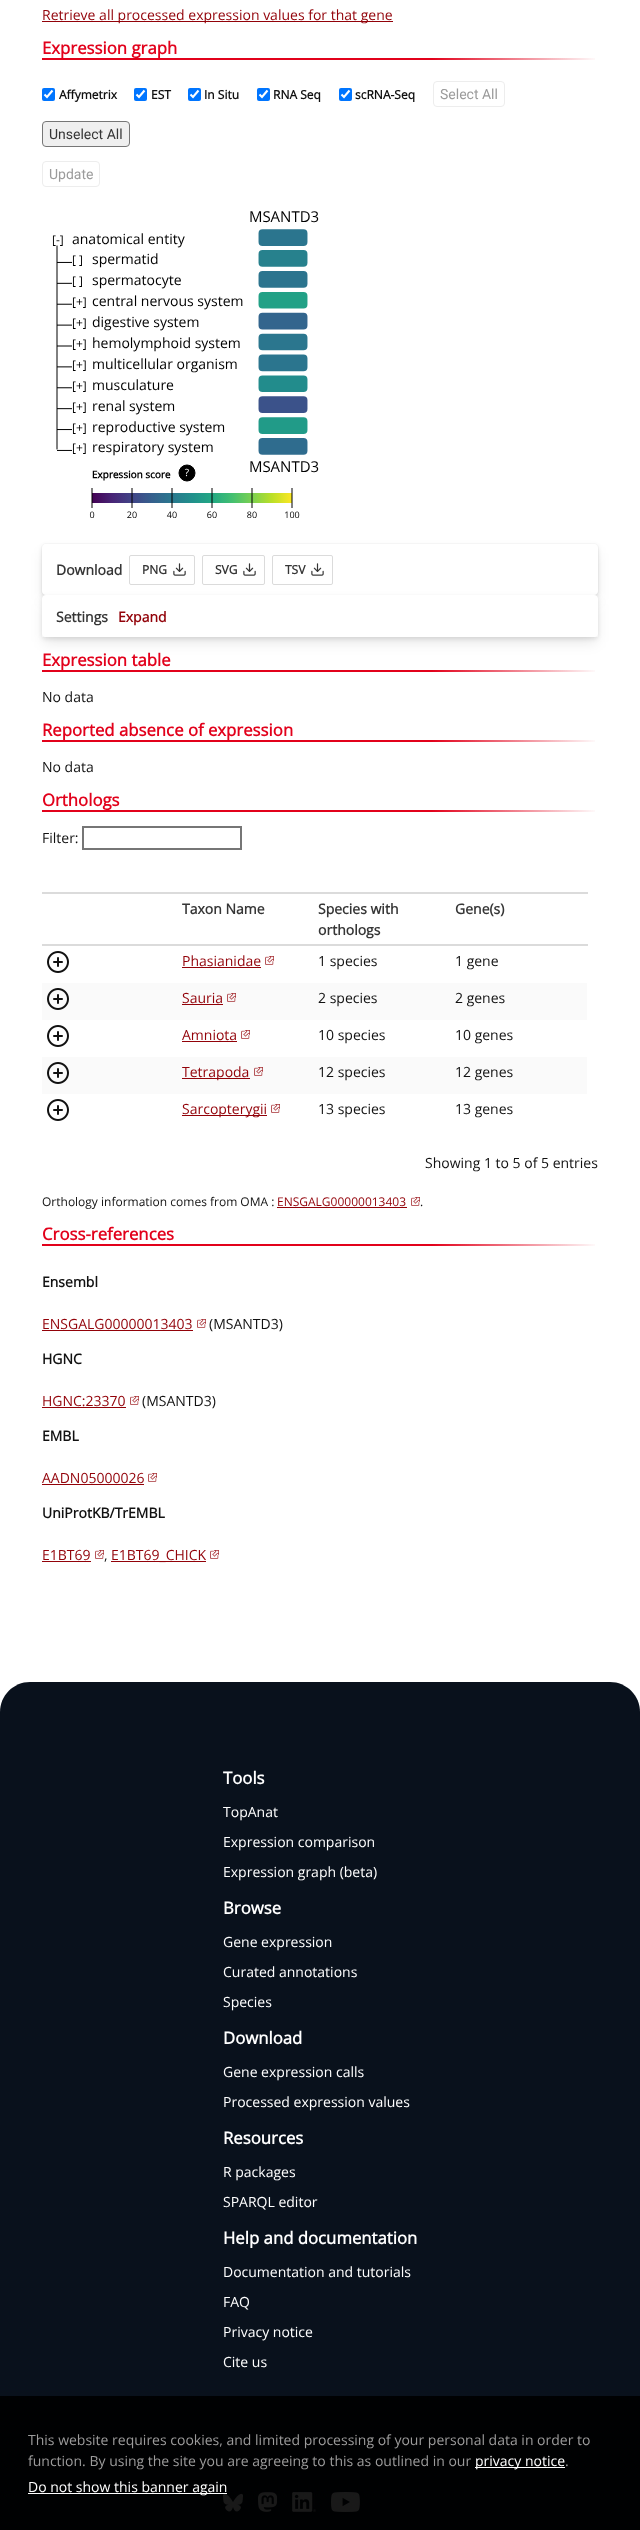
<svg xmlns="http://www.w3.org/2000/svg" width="640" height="2530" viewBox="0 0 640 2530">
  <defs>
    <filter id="blur1" x="-50%" y="-200%" width="200%" height="500%"><feGaussianBlur stdDeviation="7"/></filter>
    <clipPath id="clip1"><path d="M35 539H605V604H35ZM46 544H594C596 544 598 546 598 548V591C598 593 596 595 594 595H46C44 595 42 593 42 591V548C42 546 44 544 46 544Z" clip-rule="evenodd"/></clipPath>
    <filter id="blur2" x="-50%" y="-200%" width="200%" height="500%"><feGaussianBlur stdDeviation="2"/></filter>
    <clipPath id="clip2"><path d="M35 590H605V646H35ZM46 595H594C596 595 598 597 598 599V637H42V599C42 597 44 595 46 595Z" clip-rule="evenodd"/></clipPath>
  </defs>
  <rect width="100%" height="100%" fill="#ffffff"/>
  <rect x="42" y="21" width="351" height="1" fill="#920209"/>
  <text x="42" y="20" font-family="Open Sans" font-size="14" fill="#920209">Retrieve all processed expression values for that gene</text>
  <image x="42" y="58" width="553" height="2" href="img1.png"/>
  <text x="42" y="54" font-family="Open Sans" font-size="16.75" font-weight="bold" fill="#e2011b">Expression graph</text>
  <rect x="42" y="88" width="13" height="13" rx="2" fill="#0075ff"/>
  <path d="M44.5 94.5L47 97L52.5 90.5" fill="none" stroke="#ffffff" stroke-width="2.1"/>
  <text x="59" y="99" font-family="Open Sans" font-size="12" font-weight="bold" fill="#111111">Affymetrix</text>
  <rect x="134" y="88" width="13" height="13" rx="2" fill="#0075ff"/>
  <path d="M136.5 94.5L139 97L144.5 90.5" fill="none" stroke="#ffffff" stroke-width="2.1"/>
  <text x="151" y="99" font-family="Open Sans" font-size="12" font-weight="bold" fill="#111111">EST</text>
  <rect x="188" y="88" width="13" height="13" rx="2" fill="#0075ff"/>
  <path d="M190.5 94.5L193 97L198.5 90.5" fill="none" stroke="#ffffff" stroke-width="2.1"/>
  <text x="204" y="99" font-family="Open Sans" font-size="12" font-weight="bold" fill="#111111">In Situ</text>
  <rect x="257" y="88" width="13" height="13" rx="2" fill="#0075ff"/>
  <path d="M259.5 94.5L262 97L267.5 90.5" fill="none" stroke="#ffffff" stroke-width="2.1"/>
  <text x="273" y="99" font-family="Open Sans" font-size="12" font-weight="bold" fill="#111111">RNA Seq</text>
  <rect x="339" y="88" width="13" height="13" rx="2" fill="#0075ff"/>
  <path d="M341.5 94.5L344 97L349.5 90.5" fill="none" stroke="#ffffff" stroke-width="2.1"/>
  <text x="355" y="99" font-family="Open Sans" font-size="12" font-weight="bold" fill="#111111">scRNA-Seq</text>
  <rect x="433.5" y="81.5" width="71" height="25" rx="3.5" fill="none" stroke="#ededed"/>
  <text x="440" y="99" font-family="Roboto" font-size="14" fill="#9b9b9b">Select All</text>
  <rect x="42.5" y="121.5" width="87" height="25" rx="3.5" fill="#efefef" stroke="#767676"/>
  <text x="49" y="139" font-family="Roboto" font-size="14" fill="#363636">Unselect All</text>
  <rect x="42.5" y="161.5" width="57" height="25" rx="3.5" fill="none" stroke="#ededed"/>
  <text x="49" y="179" font-family="Roboto" font-size="14" fill="#9b9b9b">Update</text>
  <image x="52" y="211" width="267" height="307" href="img2.png"/>
  <rect x="41.5" y="543.5" width="557" height="52" rx="4.5" fill="none" stroke="#fafafa"/>
  <rect x="44" y="553" width="552" height="47" rx="2" fill="#0a0a0a" fill-opacity="0.1" filter="url(#blur1)"/>
  <rect x="42" y="544" width="556" height="51" rx="4" fill="#ffffff"/>
  <g clip-path="url(#clip1)">
    <rect x="42" y="546" width="556" height="51" rx="4" fill="#0a0a0a" fill-opacity="0.1" filter="url(#blur2)"/>
  </g>
  <text x="56" y="575" font-family="Open Sans" font-size="14" font-weight="bold" fill="#363636">Download</text>
  <rect x="129.5" y="555.5" width="65" height="29" rx="1.5" fill="none" stroke="#dbdbdb"/>
  <text x="142" y="574" font-family="Open Sans" font-size="12" font-weight="bold" fill="#363636">PNG</text>
  <image x="173" y="563" width="13" height="13" href="img3.png"/>
  <rect x="202.5" y="555.5" width="62" height="29" rx="1.5" fill="none" stroke="#dbdbdb"/>
  <text x="215" y="574" font-family="Open Sans" font-size="12" font-weight="bold" fill="#363636">SVG</text>
  <image x="243" y="563" width="13" height="13" href="img3.png"/>
  <rect x="272.5" y="555.5" width="60" height="29" rx="1.5" fill="none" stroke="#dbdbdb"/>
  <text x="285" y="574" font-family="Open Sans" font-size="12" font-weight="bold" fill="#363636">TSV</text>
  <image x="311" y="563" width="13" height="13" href="img3.png"/>
  <rect x="44" y="604" width="552" height="38" rx="2" fill="#0a0a0a" fill-opacity="0.1" filter="url(#blur1)"/>
  <rect x="42" y="595" width="556" height="42" rx="4" fill="#ffffff"/>
  <g clip-path="url(#clip2)">
    <rect x="42" y="597" width="556" height="42" rx="4" fill="#0a0a0a" fill-opacity="0.1" filter="url(#blur2)"/>
  </g>
  <text x="56" y="622" font-family="Open Sans" font-size="14" font-weight="bold" fill="#363636">Settings</text>
  <text x="118" y="622" font-family="Open Sans" font-size="14" font-weight="bold" fill="#920209">Expand</text>
  <image x="42" y="670" width="553" height="2" href="img1.png"/>
  <text x="42" y="666" font-family="Open Sans" font-size="16.75" font-weight="bold" fill="#e2011b">Expression table</text>
  <text x="42" y="702" font-family="Open Sans" font-size="14" fill="#111111">No data</text>
  <image x="42" y="740" width="553" height="2" href="img1.png"/>
  <text x="42" y="736" font-family="Open Sans" font-size="16.75" font-weight="bold" fill="#e2011b">Reported absence of expression</text>
  <text x="42" y="772" font-family="Open Sans" font-size="14" fill="#111111">No data</text>
  <image x="42" y="810" width="553" height="2" href="img4.png"/>
  <text x="42" y="806" font-family="Open Sans" font-size="16.75" font-weight="bold" fill="#e2011b">Orthologs</text>
  <text x="42" y="843" font-family="Open Sans" font-size="14" fill="#111111">Filter:</text>
  <rect x="83" y="827" width="158" height="22" fill="none" stroke="#767676" stroke-width="2"/>
  <text x="182" y="914" font-family="Open Sans" font-size="14" font-weight="bold" fill="#363636">Taxon Name</text>
  <text x="318" y="914" font-family="Open Sans" font-size="14" font-weight="bold" fill="#363636">Species with</text>
  <text x="318" y="935" font-family="Open Sans" font-size="14" font-weight="bold" fill="#363636">orthologs</text>
  <rect x="42" y="892" width="546" height="2" fill="#dbdbdb"/>
  <rect x="42" y="944" width="546" height="2" fill="#dbdbdb"/>
  <text x="455" y="914" font-family="Open Sans" font-size="14" font-weight="bold" fill="#363636">Gene(s)</text>
  <image x="47" y="951" width="22" height="22" href="img5.png"/>
  <text x="182" y="966" font-family="Open Sans" font-size="14" fill="#920209">Phasianidae</text>
  <rect x="182" y="967" width="79" height="1" fill="#920209"/>
  <image x="265" y="956" width="9" height="9" href="img6.png"/>
  <text x="318" y="966" font-family="Open Sans" font-size="14" fill="#111111">1 species</text>
  <text x="455" y="966" font-family="Open Sans" font-size="14" fill="#111111">1 gene</text>
  <rect x="42" y="983" width="545" height="37" fill="#fafafa"/>
  <image x="47" y="988" width="22" height="22" href="img7.png"/>
  <text x="182" y="1003" font-family="Open Sans" font-size="14" fill="#920209">Sauria</text>
  <rect x="182" y="1004" width="41" height="1" fill="#920209"/>
  <image x="227" y="993" width="9" height="9" href="img8.png"/>
  <text x="318" y="1003" font-family="Open Sans" font-size="14" fill="#111111">2 species</text>
  <text x="455" y="1003" font-family="Open Sans" font-size="14" fill="#111111">2 genes</text>
  <image x="47" y="1025" width="22" height="22" href="img5.png"/>
  <text x="182" y="1040" font-family="Open Sans" font-size="14" fill="#920209">Amniota</text>
  <rect x="182" y="1041" width="55" height="1" fill="#920209"/>
  <image x="241" y="1030" width="9" height="9" href="img9.png"/>
  <text x="318" y="1040" font-family="Open Sans" font-size="14" fill="#111111">10 species</text>
  <text x="455" y="1040" font-family="Open Sans" font-size="14" fill="#111111">10 genes</text>
  <rect x="42" y="1057" width="545" height="37" fill="#fafafa"/>
  <image x="47" y="1062" width="22" height="22" href="img7.png"/>
  <rect x="182" y="1078" width="68" height="1" fill="#920209"/>
  <text x="182" y="1077" font-family="Open Sans" font-size="14" fill="#920209">Tetrapoda</text>
  <image x="254" y="1067" width="9" height="9" href="img10.png"/>
  <text x="318" y="1077" font-family="Open Sans" font-size="14" fill="#111111">12 species</text>
  <text x="455" y="1077" font-family="Open Sans" font-size="14" fill="#111111">12 genes</text>
  <image x="47" y="1099" width="22" height="22" href="img5.png"/>
  <rect x="182" y="1115" width="85" height="1" fill="#920209"/>
  <text x="182" y="1114" font-family="Open Sans" font-size="14" fill="#920209">Sarcopterygii</text>
  <image x="271" y="1104" width="9" height="9" href="img9.png"/>
  <text x="318" y="1114" font-family="Open Sans" font-size="14" fill="#111111">13 species</text>
  <text x="455" y="1114" font-family="Open Sans" font-size="14" fill="#111111">13 genes</text>
  <text x="425" y="1168" font-family="Open Sans" font-size="14" fill="#111111">Showing 1 to 5 of 5 entries</text>
  <text x="42" y="1206" font-family="Open Sans" font-size="12" fill="#111111">Orthology information comes from OMA :</text>
  <text x="277" y="1206" font-family="Open Sans" font-size="12" fill="#920209">ENSGALG00000013403</text>
  <rect x="277" y="1207" width="130" height="1" fill="#920209"/>
  <image x="411" y="1197" width="9" height="9" href="img6.png"/>
  <text x="420" y="1206" font-family="Open Sans" font-size="12" fill="#111111">.</text>
  <image x="42" y="1244" width="553" height="2" href="img11.png"/>
  <text x="42" y="1240" font-family="Open Sans" font-size="16.75" font-weight="bold" fill="#e2011b">Cross-references</text>
  <text x="42" y="1287" font-family="Open Sans" font-size="14" font-weight="bold" fill="#111111">Ensembl</text>
  <text x="42" y="1329" font-family="Open Sans" font-size="14" fill="#920209">ENSGALG00000013403</text>
  <rect x="42" y="1330" width="151" height="1" fill="#920209"/>
  <image x="197" y="1319" width="9" height="9" href="img6.png"/>
  <text x="209" y="1329" font-family="Open Sans" font-size="14" fill="#111111">(MSANTD3)</text>
  <text x="42" y="1364" font-family="Open Sans" font-size="14" font-weight="bold" fill="#111111">HGNC</text>
  <text x="42" y="1406" font-family="Open Sans" font-size="14" fill="#920209">HGNC:23370</text>
  <rect x="42" y="1407" width="84" height="1" fill="#920209"/>
  <image x="130" y="1396" width="9" height="9" href="img6.png"/>
  <text x="142" y="1406" font-family="Open Sans" font-size="14" fill="#111111">(MSANTD3)</text>
  <text x="42" y="1441" font-family="Open Sans" font-size="14" font-weight="bold" fill="#111111">EMBL</text>
  <text x="42" y="1483" font-family="Open Sans" font-size="14" fill="#920209">AADN05000026</text>
  <rect x="42" y="1484" width="102" height="1" fill="#920209"/>
  <image x="148" y="1473" width="9" height="9" href="img6.png"/>
  <text x="42" y="1518" font-family="Open Sans" font-size="14" font-weight="bold" fill="#111111">UniProtKB/TrEMBL</text>
  <text x="42" y="1560" font-family="Open Sans" font-size="14" fill="#920209">E1BT69</text>
  <rect x="42" y="1561" width="49" height="1" fill="#920209"/>
  <image x="95" y="1550" width="9" height="9" href="img6.png"/>
  <text x="104" y="1560" font-family="Open Sans" font-size="14" fill="#111111">,</text>
  <rect x="111" y="1561" width="95" height="1" fill="#920209"/>
  <text x="111" y="1560" font-family="Open Sans" font-size="14" fill="#920209">E1BT69_CHICK</text>
  <image x="210" y="1550" width="9" height="9" href="img6.png"/>
  <path d="M30 1682H610C626.5 1682 640 1695.5 640 1712V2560H0V1712C0 1695.5 13.5 1682 30 1682Z" fill="#09111c"/>
  <text x="223" y="1784" font-family="Open Sans" font-size="16.75" font-weight="bold" fill="#ffffff">Tools</text>
  <text x="223" y="1817" font-family="Open Sans" font-size="14" fill="#ffffff">TopAnat</text>
  <text x="223" y="1847" font-family="Open Sans" font-size="14" fill="#ffffff">Expression comparison</text>
  <text x="223" y="1877" font-family="Open Sans" font-size="14" fill="#ffffff">Expression graph (beta)</text>
  <text x="223" y="1914" font-family="Open Sans" font-size="16.75" font-weight="bold" fill="#ffffff">Browse</text>
  <text x="223" y="1947" font-family="Open Sans" font-size="14" fill="#ffffff">Gene expression</text>
  <text x="223" y="1977" font-family="Open Sans" font-size="14" fill="#ffffff">Curated annotations</text>
  <text x="223" y="2007" font-family="Open Sans" font-size="14" fill="#ffffff">Species</text>
  <text x="223" y="2044" font-family="Open Sans" font-size="16.75" font-weight="bold" fill="#ffffff">Download</text>
  <text x="223" y="2077" font-family="Open Sans" font-size="14" fill="#ffffff">Gene expression calls</text>
  <text x="223" y="2107" font-family="Open Sans" font-size="14" fill="#ffffff">Processed expression values</text>
  <text x="223" y="2144" font-family="Open Sans" font-size="16.75" font-weight="bold" fill="#ffffff">Resources</text>
  <text x="223" y="2177" font-family="Open Sans" font-size="14" fill="#ffffff">R packages</text>
  <text x="223" y="2207" font-family="Open Sans" font-size="14" fill="#ffffff">SPARQL editor</text>
  <text x="223" y="2244" font-family="Open Sans" font-size="16.75" font-weight="bold" fill="#ffffff">Help and documentation</text>
  <text x="223" y="2277" font-family="Open Sans" font-size="14" fill="#ffffff">Documentation and tutorials</text>
  <text x="223" y="2307" font-family="Open Sans" font-size="14" fill="#ffffff">FAQ</text>
  <text x="223" y="2337" font-family="Open Sans" font-size="14" fill="#ffffff">Privacy notice</text>
  <text x="223" y="2367" font-family="Open Sans" font-size="14" fill="#ffffff">Cite us</text>
  <image x="223" y="2493" width="20" height="19" href="img12.png"/>
  <image x="258" y="2492" width="19" height="20" href="img13.png"/>
  <image x="292" y="2492" width="24" height="20" href="img14.png"/>
  <image x="331" y="2492" width="29" height="20" href="img15.png"/>
  <rect x="0" y="2396" width="640" height="134" fill="#000000" fill-opacity="0.9"/>
  <text x="28" y="2445" font-family="Open Sans" font-size="14" fill="#9b9b9b">This website requires cookies, and limited processing of your personal data in order to</text>
  <text x="28" y="2466" font-family="Open Sans" font-size="14" fill="#9b9b9b">function. By using the site you are agreeing to this as outlined in our</text>
  <rect x="475" y="2467" width="90" height="1" fill="#ffffff"/>
  <text x="475" y="2466" font-family="Open Sans" font-size="14" fill="#ffffff">privacy notice</text>
  <text x="565" y="2466" font-family="Open Sans" font-size="14" fill="#9b9b9b">.</text>
  <rect x="28" y="2493" width="199" height="1" fill="#ffffff"/>
  <text x="28" y="2492" font-family="Open Sans" font-size="14" fill="#ffffff">Do not show this banner again</text>
</svg>
